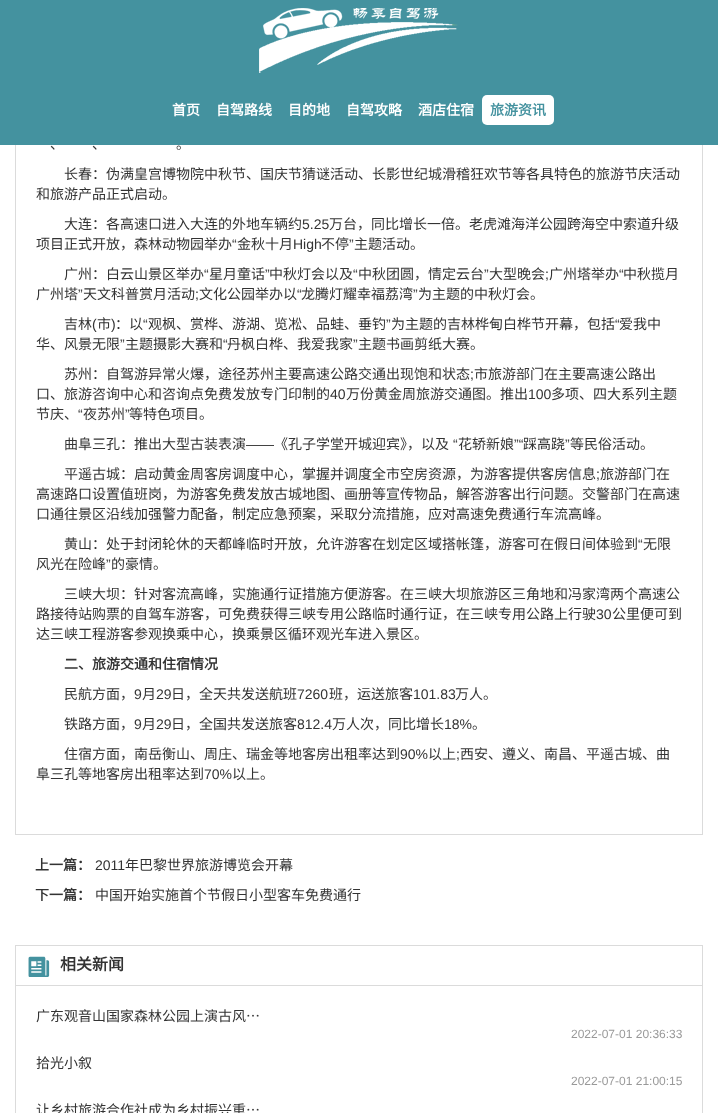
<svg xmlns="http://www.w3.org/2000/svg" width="718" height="1113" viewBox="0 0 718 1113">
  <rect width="100%" height="100%" fill="#ffffff"/>
  <rect x="15.5" y="-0.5" width="687" height="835" fill="none" stroke="#dbdbdb"/>
  <rect x="0" y="0" width="718" height="145" fill="#44929f"/>
  <image x="259" y="8" width="199" height="65" href="img1.png"/>
  <text x="172" y="115" font-family="Noto Sans CJK SC" font-size="14" font-weight="bold" fill="#ffffff">首页</text>
  <text x="216" y="115" font-family="Noto Sans CJK SC" font-size="14" font-weight="bold" fill="#ffffff">自驾路线</text>
  <text x="288" y="115" font-family="Noto Sans CJK SC" font-size="14" font-weight="bold" fill="#ffffff">目的地</text>
  <text x="346" y="115" font-family="Noto Sans CJK SC" font-size="14" font-weight="bold" fill="#ffffff">自驾攻略</text>
  <text x="418" y="115" font-family="Noto Sans CJK SC" font-size="14" font-weight="bold" fill="#ffffff">酒店住宿</text>
  <rect x="482" y="95" width="72" height="30" rx="5" fill="#ffffff"/>
  <text x="490" y="115" font-family="Noto Sans CJK SC" font-size="14" font-weight="bold" fill="#44929f">旅游资讯</text>
  <text x="50" y="149" font-family="Noto Sans CJK SC" font-size="14" fill="#333333">、</text>
  <text x="92" y="149" font-family="Noto Sans CJK SC" font-size="14" fill="#333333">、</text>
  <text x="176" y="149" font-family="Noto Sans CJK SC" font-size="14" fill="#333333">。</text>
  <text x="64" y="179" font-family="Noto Sans CJK SC" font-size="14" fill="#333333">长春：伪满皇宫博物院中秋节、国庆节猜谜活动、长影世纪城滑稽狂欢节等各具特色的旅游节庆活动</text>
  <text x="36" y="199" font-family="Noto Sans CJK SC" font-size="14" fill="#333333">和旅游产品正式启动。</text>
  <text x="64" y="229" font-family="Noto Sans CJK SC" font-size="14" fill="#333333">大连：各高速口进入大连的外地车辆约</text>
  <text x="302" y="229" font-family="Liberation Sans" font-size="14" fill="#333333">5.25</text>
  <text x="329" y="229" font-family="Noto Sans CJK SC" font-size="14" fill="#333333">万台，同比增长一倍。老虎滩海洋公园跨海空中索道升级</text>
  <text x="36" y="249" font-family="Noto Sans CJK SC" font-size="14" fill="#333333">项目正式开放，森林动物园举办</text>
  <text x="232" y="249" font-family="Liberation Sans" font-size="14" fill="#333333">“</text>
  <text x="237" y="249" font-family="Noto Sans CJK SC" font-size="14" fill="#333333">金秋十月</text>
  <text x="293" y="249" font-family="Liberation Sans" font-size="14" fill="#333333">High</text>
  <text x="321" y="249" font-family="Noto Sans CJK SC" font-size="14" fill="#333333">不停</text>
  <text x="349" y="249" font-family="Liberation Sans" font-size="14" fill="#333333">”</text>
  <text x="354" y="249" font-family="Noto Sans CJK SC" font-size="14" fill="#333333">主题活动。</text>
  <text x="64" y="279" font-family="Noto Sans CJK SC" font-size="14" fill="#333333">广州：白云山景区举办</text>
  <text x="204" y="279" font-family="Liberation Sans" font-size="14" fill="#333333">“</text>
  <text x="209" y="279" font-family="Noto Sans CJK SC" font-size="14" fill="#333333">星月童话</text>
  <text x="265" y="279" font-family="Liberation Sans" font-size="14" fill="#333333">”</text>
  <text x="269" y="279" font-family="Noto Sans CJK SC" font-size="14" fill="#333333">中秋灯会以及</text>
  <text x="353" y="279" font-family="Liberation Sans" font-size="14" fill="#333333">“</text>
  <text x="358" y="279" font-family="Noto Sans CJK SC" font-size="14" fill="#333333">中秋团圆，情定云台</text>
  <text x="484" y="279" font-family="Liberation Sans" font-size="14" fill="#333333">”</text>
  <text x="489" y="279" font-family="Noto Sans CJK SC" font-size="14" fill="#333333">大型晚会</text>
  <text x="545" y="279" font-family="Liberation Sans" font-size="14" fill="#333333">;</text>
  <text x="549" y="279" font-family="Noto Sans CJK SC" font-size="14" fill="#333333">广州塔举办</text>
  <text x="619" y="279" font-family="Liberation Sans" font-size="14" fill="#333333">“</text>
  <text x="623" y="279" font-family="Noto Sans CJK SC" font-size="14" fill="#333333">中秋揽月</text>
  <text x="36" y="299" font-family="Noto Sans CJK SC" font-size="14" fill="#333333">广州塔</text>
  <text x="78" y="299" font-family="Liberation Sans" font-size="14" fill="#333333">”</text>
  <text x="83" y="299" font-family="Noto Sans CJK SC" font-size="14" fill="#333333">天文科普赏月活动</text>
  <text x="195" y="299" font-family="Liberation Sans" font-size="14" fill="#333333">;</text>
  <text x="199" y="299" font-family="Noto Sans CJK SC" font-size="14" fill="#333333">文化公园举办以</text>
  <text x="297" y="299" font-family="Liberation Sans" font-size="14" fill="#333333">“</text>
  <text x="301" y="299" font-family="Noto Sans CJK SC" font-size="14" fill="#333333">龙腾灯耀幸福荔湾</text>
  <text x="413" y="299" font-family="Liberation Sans" font-size="14" fill="#333333">”</text>
  <text x="418" y="299" font-family="Noto Sans CJK SC" font-size="14" fill="#333333">为主题的中秋灯会。</text>
  <text x="64" y="329" font-family="Noto Sans CJK SC" font-size="14" fill="#333333">吉林</text>
  <text x="92" y="329" font-family="Liberation Sans" font-size="14" fill="#333333">(</text>
  <text x="97" y="329" font-family="Noto Sans CJK SC" font-size="14" fill="#333333">市</text>
  <text x="111" y="329" font-family="Liberation Sans" font-size="14" fill="#333333">)</text>
  <text x="115" y="329" font-family="Noto Sans CJK SC" font-size="14" fill="#333333">：以</text>
  <text x="143" y="329" font-family="Liberation Sans" font-size="14" fill="#333333">“</text>
  <text x="148" y="329" font-family="Noto Sans CJK SC" font-size="14" fill="#333333">观枫、赏桦、游湖、览凇、品蛙、垂钓</text>
  <text x="386" y="329" font-family="Liberation Sans" font-size="14" fill="#333333">”</text>
  <text x="391" y="329" font-family="Noto Sans CJK SC" font-size="14" fill="#333333">为主题的吉林桦甸白桦节开幕，包括</text>
  <text x="615" y="329" font-family="Liberation Sans" font-size="14" fill="#333333">“</text>
  <text x="619" y="329" font-family="Noto Sans CJK SC" font-size="14" fill="#333333">爱我中</text>
  <text x="36" y="349" font-family="Noto Sans CJK SC" font-size="14" fill="#333333">华、风景无限</text>
  <text x="120" y="349" font-family="Liberation Sans" font-size="14" fill="#333333">”</text>
  <text x="125" y="349" font-family="Noto Sans CJK SC" font-size="14" fill="#333333">主题摄影大赛和</text>
  <text x="223" y="349" font-family="Liberation Sans" font-size="14" fill="#333333">“</text>
  <text x="227" y="349" font-family="Noto Sans CJK SC" font-size="14" fill="#333333">丹枫白桦、我爱我家</text>
  <text x="353" y="349" font-family="Liberation Sans" font-size="14" fill="#333333">”</text>
  <text x="358" y="349" font-family="Noto Sans CJK SC" font-size="14" fill="#333333">主题书画剪纸大赛。</text>
  <text x="64" y="379" font-family="Noto Sans CJK SC" font-size="14" fill="#333333">苏州：自驾游异常火爆，途径苏州主要高速公路交通出现饱和状态</text>
  <text x="470" y="379" font-family="Liberation Sans" font-size="14" fill="#333333">;</text>
  <text x="474" y="379" font-family="Noto Sans CJK SC" font-size="14" fill="#333333">市旅游部门在主要高速公路出</text>
  <text x="36" y="399" font-family="Noto Sans CJK SC" font-size="14" fill="#333333">口、旅游咨询中心和咨询点免费发放专门印制的</text>
  <text x="330" y="399" font-family="Liberation Sans" font-size="14" fill="#333333">40</text>
  <text x="346" y="399" font-family="Noto Sans CJK SC" font-size="14" fill="#333333">万份黄金周旅游交通图。推出</text>
  <text x="528" y="399" font-family="Liberation Sans" font-size="14" fill="#333333">100</text>
  <text x="551" y="399" font-family="Noto Sans CJK SC" font-size="14" fill="#333333">多项、四大系列主题</text>
  <text x="36" y="419" font-family="Noto Sans CJK SC" font-size="14" fill="#333333">节庆、</text>
  <text x="78" y="419" font-family="Liberation Sans" font-size="14" fill="#333333">“</text>
  <text x="83" y="419" font-family="Noto Sans CJK SC" font-size="14" fill="#333333">夜苏州</text>
  <text x="125" y="419" font-family="Liberation Sans" font-size="14" fill="#333333">”</text>
  <text x="129" y="419" font-family="Noto Sans CJK SC" font-size="14" fill="#333333">等特色项目。</text>
  <text x="64" y="449" font-family="Noto Sans CJK SC" font-size="14" fill="#333333">曲阜三孔：推出大型古装表演</text>
  <text x="274" y="449" font-family="Noto Sans CJK SC" font-size="14" fill="#333333">《孔子学堂开城迎宾》，以及</text>
  <text x="453" y="449" font-family="Liberation Sans" font-size="14" fill="#333333">“</text>
  <text x="458" y="449" font-family="Noto Sans CJK SC" font-size="14" fill="#333333">花轿新娘</text>
  <text x="514" y="449" font-family="Liberation Sans" font-size="14" fill="#333333">”“</text>
  <text x="523" y="449" font-family="Noto Sans CJK SC" font-size="14" fill="#333333">踩高跷</text>
  <text x="565" y="449" font-family="Liberation Sans" font-size="14" fill="#333333">”</text>
  <text x="570" y="449" font-family="Noto Sans CJK SC" font-size="14" fill="#333333">等民俗活动。</text>
  <text x="246" y="449" font-family="Liberation Sans" font-size="14" fill="#333333">——</text>
  <text x="64" y="479" font-family="Noto Sans CJK SC" font-size="14" fill="#333333">平遥古城：启动黄金周客房调度中心，掌握并调度全市空房资源，为游客提供客房信息</text>
  <text x="596" y="479" font-family="Liberation Sans" font-size="14" fill="#333333">;</text>
  <text x="600" y="479" font-family="Noto Sans CJK SC" font-size="14" fill="#333333">旅游部门在</text>
  <text x="36" y="499" font-family="Noto Sans CJK SC" font-size="14" fill="#333333">高速路口设置值班岗，为游客免费发放古城地图、画册等宣传物品，解答游客出行问题。交警部门在高速</text>
  <text x="36" y="519" font-family="Noto Sans CJK SC" font-size="14" fill="#333333">口通往景区沿线加强警力配备，制定应急预案，采取分流措施，应对高速免费通行车流高峰。</text>
  <text x="64" y="549" font-family="Noto Sans CJK SC" font-size="14" fill="#333333">黄山：处于封闭轮休的天都峰临时开放，允许游客在划定区域搭帐篷，游客可在假日间体验到</text>
  <text x="638" y="549" font-family="Liberation Sans" font-size="14" fill="#333333">“</text>
  <text x="643" y="549" font-family="Noto Sans CJK SC" font-size="14" fill="#333333">无限</text>
  <text x="36" y="569" font-family="Noto Sans CJK SC" font-size="14" fill="#333333">风光在险峰</text>
  <text x="106" y="569" font-family="Liberation Sans" font-size="14" fill="#333333">”</text>
  <text x="111" y="569" font-family="Noto Sans CJK SC" font-size="14" fill="#333333">的豪情。</text>
  <text x="64" y="599" font-family="Noto Sans CJK SC" font-size="14" fill="#333333">三峡大坝：针对客流高峰，实施通行证措施方便游客。在三峡大坝旅游区三角地和冯家湾两个高速公</text>
  <text x="36" y="619" font-family="Noto Sans CJK SC" font-size="14" fill="#333333">路接待站购票的自驾车游客，可免费获得三峡专用公路临时通行证，在三峡专用公路上行驶</text>
  <text x="596" y="619" font-family="Liberation Sans" font-size="14" fill="#333333">30</text>
  <text x="612" y="619" font-family="Noto Sans CJK SC" font-size="14" fill="#333333">公里便可到</text>
  <text x="36" y="639" font-family="Noto Sans CJK SC" font-size="14" fill="#333333">达三峡工程游客参观换乘中心，换乘景区循环观光车进入景区。</text>
  <text x="64" y="669" font-family="Noto Sans CJK SC" font-size="14" font-weight="bold" fill="#333333">二、旅游交通和住宿情况</text>
  <text x="64" y="699" font-family="Noto Sans CJK SC" font-size="14" fill="#333333">民航方面，</text>
  <text x="134" y="699" font-family="Liberation Sans" font-size="14" fill="#333333">9</text>
  <text x="142" y="699" font-family="Noto Sans CJK SC" font-size="14" fill="#333333">月</text>
  <text x="156" y="699" font-family="Liberation Sans" font-size="14" fill="#333333">29</text>
  <text x="171" y="699" font-family="Noto Sans CJK SC" font-size="14" fill="#333333">日，全天共发送航班</text>
  <text x="297" y="699" font-family="Liberation Sans" font-size="14" fill="#333333">7260</text>
  <text x="329" y="699" font-family="Noto Sans CJK SC" font-size="14" fill="#333333">班，运送旅客</text>
  <text x="413" y="699" font-family="Liberation Sans" font-size="14" fill="#333333">101.83</text>
  <text x="455" y="699" font-family="Noto Sans CJK SC" font-size="14" fill="#333333">万人。</text>
  <text x="64" y="729" font-family="Noto Sans CJK SC" font-size="14" fill="#333333">铁路方面，</text>
  <text x="134" y="729" font-family="Liberation Sans" font-size="14" fill="#333333">9</text>
  <text x="142" y="729" font-family="Noto Sans CJK SC" font-size="14" fill="#333333">月</text>
  <text x="156" y="729" font-family="Liberation Sans" font-size="14" fill="#333333">29</text>
  <text x="171" y="729" font-family="Noto Sans CJK SC" font-size="14" fill="#333333">日，全国共发送旅客</text>
  <text x="297" y="729" font-family="Liberation Sans" font-size="14" fill="#333333">812.4</text>
  <text x="332" y="729" font-family="Noto Sans CJK SC" font-size="14" fill="#333333">万人次，同比增长</text>
  <text x="444" y="729" font-family="Liberation Sans" font-size="14" fill="#333333">18%</text>
  <text x="472" y="729" font-family="Noto Sans CJK SC" font-size="14" fill="#333333">。</text>
  <text x="64" y="759" font-family="Noto Sans CJK SC" font-size="14" fill="#333333">住宿方面，南岳衡山、周庄、瑞金等地客房出租率达到</text>
  <text x="400" y="759" font-family="Liberation Sans" font-size="14" fill="#333333">90%</text>
  <text x="428" y="759" font-family="Noto Sans CJK SC" font-size="14" fill="#333333">以上</text>
  <text x="456" y="759" font-family="Liberation Sans" font-size="14" fill="#333333">;</text>
  <text x="460" y="759" font-family="Noto Sans CJK SC" font-size="14" fill="#333333">西安、遵义、南昌、平遥古城、曲</text>
  <text x="36" y="779" font-family="Noto Sans CJK SC" font-size="14" fill="#333333">阜三孔等地客房出租率达到</text>
  <text x="204" y="779" font-family="Liberation Sans" font-size="14" fill="#333333">70%</text>
  <text x="232" y="779" font-family="Noto Sans CJK SC" font-size="14" fill="#333333">以上。</text>
  <text x="35" y="870" font-family="Noto Sans CJK SC" font-size="14" font-weight="bold" fill="#333333">上一篇：</text>
  <text x="95" y="870" font-family="Liberation Sans" font-size="14" fill="#333333">2011</text>
  <text x="125" y="870" font-family="Noto Sans CJK SC" font-size="14" fill="#333333">年巴黎世界旅游博览会开幕</text>
  <text x="35" y="900" font-family="Noto Sans CJK SC" font-size="14" font-weight="bold" fill="#333333">下一篇：</text>
  <text x="95" y="900" font-family="Noto Sans CJK SC" font-size="14" fill="#333333">中国开始实施首个节假日小型客车免费通行</text>
  <rect x="15.5" y="945.5" width="687" height="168" fill="none" stroke="#dbdbdb"/>
  <rect x="16" y="985" width="686" height="1" fill="#dbdbdb"/>
  <image x="28" y="956" width="22" height="21" href="img2.png"/>
  <text x="60" y="970" font-family="Noto Sans CJK SC" font-size="16" font-weight="bold" fill="#333333">相关新闻</text>
  <text x="36" y="1021" font-family="Noto Sans CJK SC" font-size="14" fill="#333333">广东观音山国家森林公园上演古风…</text>
  <text x="571" y="1038" font-family="Liberation Sans" font-size="12" fill="#999999">2022-07-01 20:36:33</text>
  <text x="36" y="1068" font-family="Noto Sans CJK SC" font-size="14" fill="#333333">拾光小叙</text>
  <text x="571" y="1085" font-family="Liberation Sans" font-size="12" fill="#999999">2022-07-01 21:00:15</text>
  <text x="36" y="1115" font-family="Noto Sans CJK SC" font-size="14" fill="#333333">让乡村旅游合作社成为乡村振兴重…</text>
</svg>
